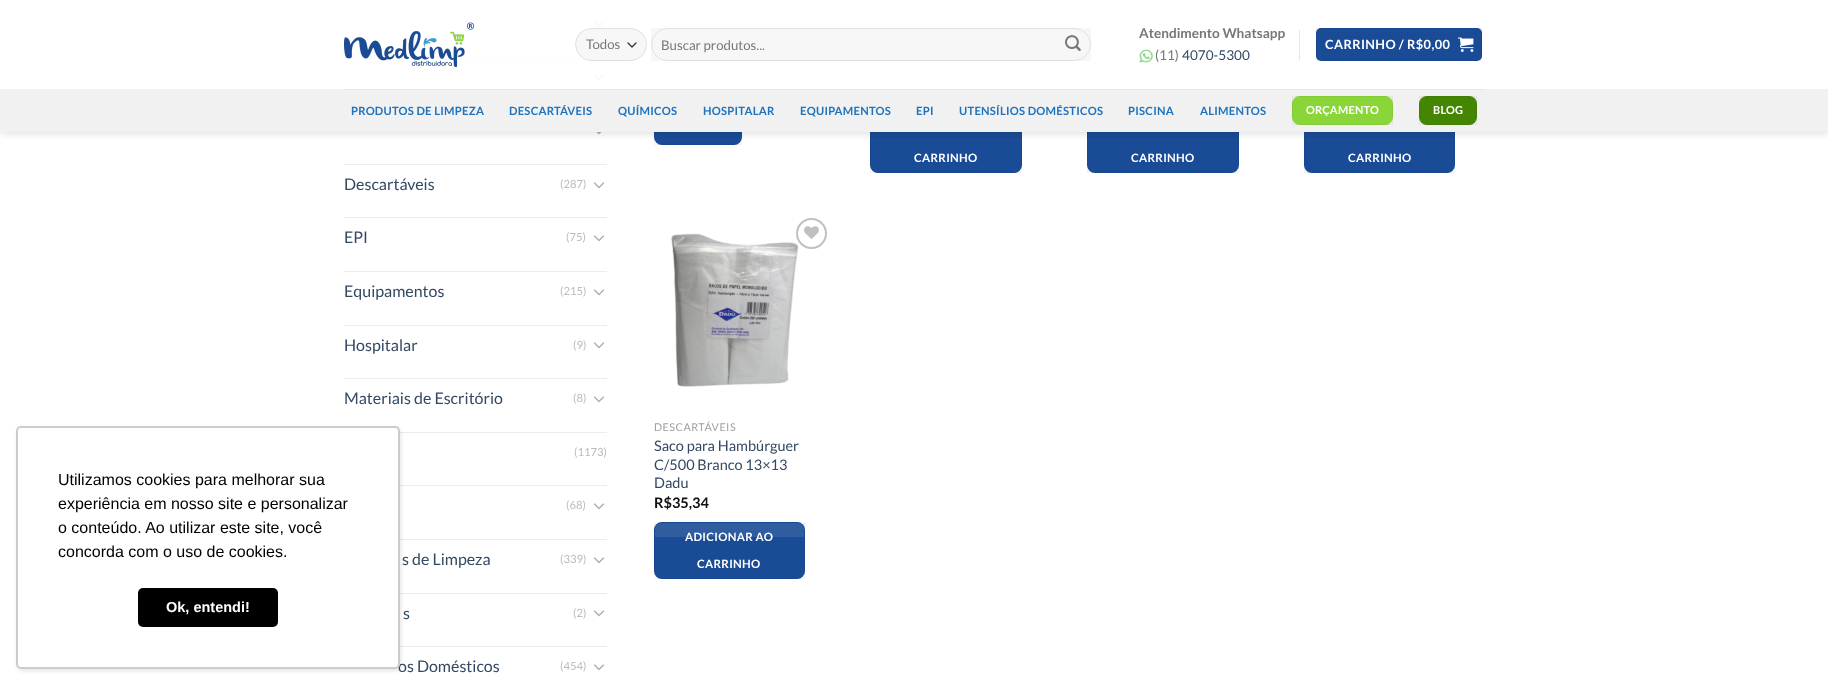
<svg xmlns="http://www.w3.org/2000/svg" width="1828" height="685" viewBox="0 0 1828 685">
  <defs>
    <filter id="blur1" x="-50%" y="-200%" width="200%" height="500%"><feGaussianBlur stdDeviation="2"/></filter>
    <clipPath id="clip1"><rect x="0" y="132" width="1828" height="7"/></clipPath>
    <filter id="blur2" x="-50%" y="-200%" width="200%" height="500%"><feGaussianBlur stdDeviation="5"/></filter>
  </defs>
  <rect width="100%" height="100%" fill="#ffffff"/>
  <rect x="400" y="432" width="207" height="1" fill="#ececec"/>
  <rect x="400" y="485" width="207" height="1" fill="#ececec"/>
  <rect x="400" y="539" width="207" height="1" fill="#ececec"/>
  <rect x="400" y="593" width="207" height="1" fill="#ececec"/>
  <rect x="400" y="646" width="207" height="1" fill="#ececec"/>
  <rect x="17" y="428" width="384" height="243" rx="5" fill="#000000" fill-opacity="0.1" filter="url(#blur1)"/>
  <text x="398" y="672" font-family="Lato" font-size="16" fill="#334862">os Domésticos</text>
  <rect x="16" y="426" width="384" height="243" rx="5" fill="#ffffff"/>
  <rect x="17" y="427" width="382" height="241" rx="4" fill="none" stroke="#000000" stroke-opacity="0.2" stroke-width="2"/>
  <text x="58" y="485" font-family="Liberation Sans" font-size="16" fill="#000000">Utilizamos cookies para melhorar sua</text>
  <text x="58" y="509" font-family="Liberation Sans" font-size="16" fill="#000000">experiência em nosso site e personalizar</text>
  <text x="58" y="533" font-family="Liberation Sans" font-size="16" fill="#000000">o conteúdo. Ao utilizar este site, você</text>
  <text x="58" y="557" font-family="Liberation Sans" font-size="16" fill="#000000">concorda com o uso de cookies.</text>
  <rect x="138" y="588" width="140" height="39" rx="5" fill="#000000"/>
  <text x="166" y="612" font-family="Liberation Sans" font-size="14.5" font-weight="bold" fill="#ffffff">Ok, entendi!</text>
  <image x="593" y="21" width="12" height="7" href="img5.png"/>
  <rect x="344" y="57" width="238" height="1" fill="#ececec"/>
  <image x="593" y="74" width="12" height="7" href="img5.png"/>
  <image x="596" y="132" width="6" height="3" href="img6.png"/>
  <rect x="654" y="116" width="88" height="29" rx="8" fill="#194b96"/>
  <rect x="654.5" y="116.5" width="87" height="28" fill="none" stroke="#000000" stroke-opacity="0.05"/>
  <rect x="870" y="116" width="152" height="57" rx="8" fill="#194b96"/>
  <rect x="870.5" y="116.5" width="151" height="56" fill="none" stroke="#000000" stroke-opacity="0.05"/>
  <rect x="1087" y="116" width="152" height="57" rx="8" fill="#194b96"/>
  <rect x="1087.5" y="116.5" width="151" height="56" fill="none" stroke="#000000" stroke-opacity="0.05"/>
  <rect x="1304" y="116" width="151" height="57" rx="8" fill="#194b96"/>
  <rect x="1304.5" y="116.5" width="150" height="56" fill="none" stroke="#000000" stroke-opacity="0.05"/>
  <g clip-path="url(#clip1)">
    <rect x="1" y="1" width="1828" height="132" fill="#000000" fill-opacity="0.15" filter="url(#blur2)"/>
  </g>
  <rect x="344" y="21" width="261" height="60" fill="#ffffff" fill-opacity="0.9"/>
  <image x="344" y="22" width="131" height="45" href="img1.png"/>
  <rect x="575" y="28" width="72" height="33" rx="16.5" fill="#f7f7f7"/>
  <path d="M628 43L632 47L636 43" fill="none" stroke="#333333" stroke-width="1.3" stroke-linecap="round" stroke-linejoin="round"/>
  <rect x="575.5" y="28.5" width="71" height="32" rx="16" fill="none" stroke="#000000" stroke-opacity="0.09"/>
  <text x="586" y="49" font-family="Lato" font-size="13.25" fill="#777777">Todos</text>
  <rect x="651" y="28" width="440" height="33" fill="#000000" fill-opacity="0.03"/>
  <rect x="651.5" y="28.5" width="439" height="32" rx="16" fill="none" stroke="#000000" stroke-opacity="0.09"/>
  <text x="661" y="50" font-family="Lato" font-size="13.25" fill="#777777">Buscar produtos...</text>
  <image x="1065" y="35" width="16" height="16" href="img2.png"/>
  <text x="1139" y="38" font-family="Lato" font-size="13.6" font-weight="bold" fill="#777777">Atendimento Whatsapp</text>
  <image x="1139" y="49" width="14" height="14" href="img3.png"/>
  <text x="1155" y="60" font-family="Lato" font-size="13.6" fill="#777777">(11)</text>
  <text x="1182" y="60" font-family="Lato" font-size="13.6" fill="#334862">4070-5300</text>
  <rect x="1299" y="30" width="1" height="30" fill="#e6e6e6"/>
  <rect x="1316" y="28" width="166" height="33" rx="5" fill="#194b96"/>
  <rect x="1316.5" y="28.5" width="165" height="32" fill="none" stroke="#000000" stroke-opacity="0.05"/>
  <text x="1325" y="49" font-family="Lato" font-size="12.75" font-weight="bold" letter-spacing="0.4" fill="#ffffff">CARRINHO / R$0,00</text>
  <image x="1458" y="37" width="16" height="15" href="img4.png"/>
  <rect x="0" y="89" width="1828" height="43" fill="#f1f1f1"/>
  <rect x="344" y="89" width="1140" height="1" fill="#e5e5e5"/>
  <text x="351" y="115" font-family="Lato" font-size="11.25" font-weight="bold" letter-spacing="0.25" fill="#1e73be">PRODUTOS DE LIMPEZA</text>
  <text x="509" y="115" font-family="Lato" font-size="11.25" font-weight="bold" letter-spacing="0.25" fill="#1e73be">DESCARTÁVEIS</text>
  <text x="618" y="115" font-family="Lato" font-size="11.25" font-weight="bold" letter-spacing="0.25" fill="#1e73be">QUÍMICOS</text>
  <text x="703" y="115" font-family="Lato" font-size="11.25" font-weight="bold" letter-spacing="0.25" fill="#1e73be">HOSPITALAR</text>
  <text x="800" y="115" font-family="Lato" font-size="11.25" font-weight="bold" letter-spacing="0.25" fill="#1e73be">EQUIPAMENTOS</text>
  <text x="916" y="115" font-family="Lato" font-size="11.25" font-weight="bold" letter-spacing="0.25" fill="#1e73be">EPI</text>
  <text x="959" y="115" font-family="Lato" font-size="11.25" font-weight="bold" letter-spacing="0.25" fill="#1e73be">UTENSÍLIOS DOMÉSTICOS</text>
  <text x="1128" y="115" font-family="Lato" font-size="11.25" font-weight="bold" letter-spacing="0.25" fill="#1e73be">PISCINA</text>
  <text x="1200" y="115" font-family="Lato" font-size="11.25" font-weight="bold" letter-spacing="0.25" fill="#1e73be">ALIMENTOS</text>
  <rect x="1292" y="96" width="101" height="29" rx="8" fill="#8ad638"/>
  <rect x="1292.5" y="96.5" width="100" height="28" fill="none" stroke="#000000" stroke-opacity="0.05"/>
  <text x="1306" y="114" font-family="Lato" font-size="11" font-weight="bold" letter-spacing="0.25" fill="#ffffff">ORÇAMENTO</text>
  <rect x="1419" y="96" width="58" height="29" rx="8" fill="#448602"/>
  <rect x="1419.5" y="96.5" width="57" height="28" fill="none" stroke="#000000" stroke-opacity="0.05"/>
  <text x="1433" y="114" font-family="Lato" font-size="11" font-weight="bold" letter-spacing="0.25" fill="#ffffff">BLOG</text>
  <rect x="344" y="164" width="263" height="1" fill="#ececec"/>
  <text x="344" y="190" font-family="Lato" font-size="16" fill="#334862">Descartáveis</text>
  <text x="560" y="188" font-family="Lato" font-size="11.25" fill="#bbbbbb">(287)</text>
  <image x="593" y="182" width="12" height="7" href="img5.png"/>
  <rect x="344" y="217" width="263" height="1" fill="#ececec"/>
  <text x="344" y="243" font-family="Lato" font-size="16" fill="#334862">EPI</text>
  <text x="566" y="241" font-family="Lato" font-size="11.25" fill="#bbbbbb">(75)</text>
  <image x="593" y="235" width="12" height="7" href="img5.png"/>
  <rect x="344" y="271" width="263" height="1" fill="#ececec"/>
  <text x="344" y="297" font-family="Lato" font-size="16" fill="#334862">Equipamentos</text>
  <text x="560" y="295" font-family="Lato" font-size="11.25" fill="#bbbbbb">(215)</text>
  <image x="593" y="289" width="12" height="7" href="img5.png"/>
  <rect x="344" y="325" width="263" height="1" fill="#ececec"/>
  <text x="344" y="351" font-family="Lato" font-size="16" fill="#334862">Hospitalar</text>
  <text x="573" y="349" font-family="Lato" font-size="11.25" fill="#bbbbbb">(9)</text>
  <image x="593" y="342" width="12" height="7" href="img5.png"/>
  <rect x="344" y="378" width="263" height="1" fill="#ececec"/>
  <text x="344" y="404" font-family="Lato" font-size="16" fill="#334862">Materiais de Escritório</text>
  <text x="573" y="402" font-family="Lato" font-size="11.25" fill="#bbbbbb">(8)</text>
  <image x="593" y="396" width="12" height="7" href="img5.png"/>
  <text x="574" y="456" font-family="Lato" font-size="11.25" fill="#bbbbbb">(1173)</text>
  <text x="566" y="509" font-family="Lato" font-size="11.25" fill="#bbbbbb">(68)</text>
  <image x="593" y="503" width="12" height="7" href="img5.png"/>
  <text x="402" y="565" font-family="Lato" font-size="16" fill="#334862">s de Limpeza</text>
  <text x="560" y="563" font-family="Lato" font-size="11.25" fill="#bbbbbb">(339)</text>
  <image x="593" y="557" width="12" height="7" href="img5.png"/>
  <text x="403" y="619" font-family="Lato" font-size="16" fill="#334862">s</text>
  <text x="573" y="617" font-family="Lato" font-size="11.25" fill="#bbbbbb">(2)</text>
  <image x="593" y="610" width="12" height="7" href="img5.png"/>
  <text x="560" y="670" font-family="Lato" font-size="11.25" fill="#bbbbbb">(454)</text>
  <image x="593" y="664" width="12" height="7" href="img5.png"/>
  <text x="914" y="162" font-family="Lato" font-size="11.5" font-weight="bold" letter-spacing="0.3" fill="#ffffff">CARRINHO</text>
  <text x="1131" y="162" font-family="Lato" font-size="11.5" font-weight="bold" letter-spacing="0.3" fill="#ffffff">CARRINHO</text>
  <text x="1348" y="162" font-family="Lato" font-size="11.5" font-weight="bold" letter-spacing="0.3" fill="#ffffff">CARRINHO</text>
  <image x="671" y="233" width="128" height="154" href="img7.png"/>
  <circle cx="811.5" cy="233.5" r="14.5" fill="none" stroke="#c0c0c0" stroke-width="2"/>
  <image x="804" y="226" width="15" height="13" href="img8.png"/>
  <text x="654" y="431" font-family="Lato" font-size="10.75" letter-spacing="0.5" fill="#a0a0a0">DESCARTÁVEIS</text>
  <text x="654" y="451" font-family="Lato" font-size="14.5" fill="#334862">Saco para Hambúrguer</text>
  <text x="654" y="470" font-family="Lato" font-size="14.5" fill="#334862">C/500 Branco 13×13</text>
  <text x="654" y="488" font-family="Lato" font-size="14.5" fill="#334862">Dadu</text>
  <text x="654" y="508" font-family="Lato" font-size="14.5" font-weight="bold" fill="#111111">R$35,34</text>
  <rect x="654" y="522" width="151" height="57" rx="8" fill="#194b96"/>
  <rect x="654.5" y="522.5" width="150" height="56" fill="none" stroke="#000000" stroke-opacity="0.05"/>
  <path d="M662 523H797C801 523 804 526 804 530V537H655V530C655 526 658 523 662 523Z" fill="#ffffff" fill-opacity="0.1"/>
  <text x="685" y="541" font-family="Lato" font-size="11.5" font-weight="bold" letter-spacing="0.3" fill="#ffffff">ADICIONAR AO</text>
  <text x="697" y="568" font-family="Lato" font-size="11.5" font-weight="bold" letter-spacing="0.3" fill="#ffffff">CARRINHO</text>
</svg>
